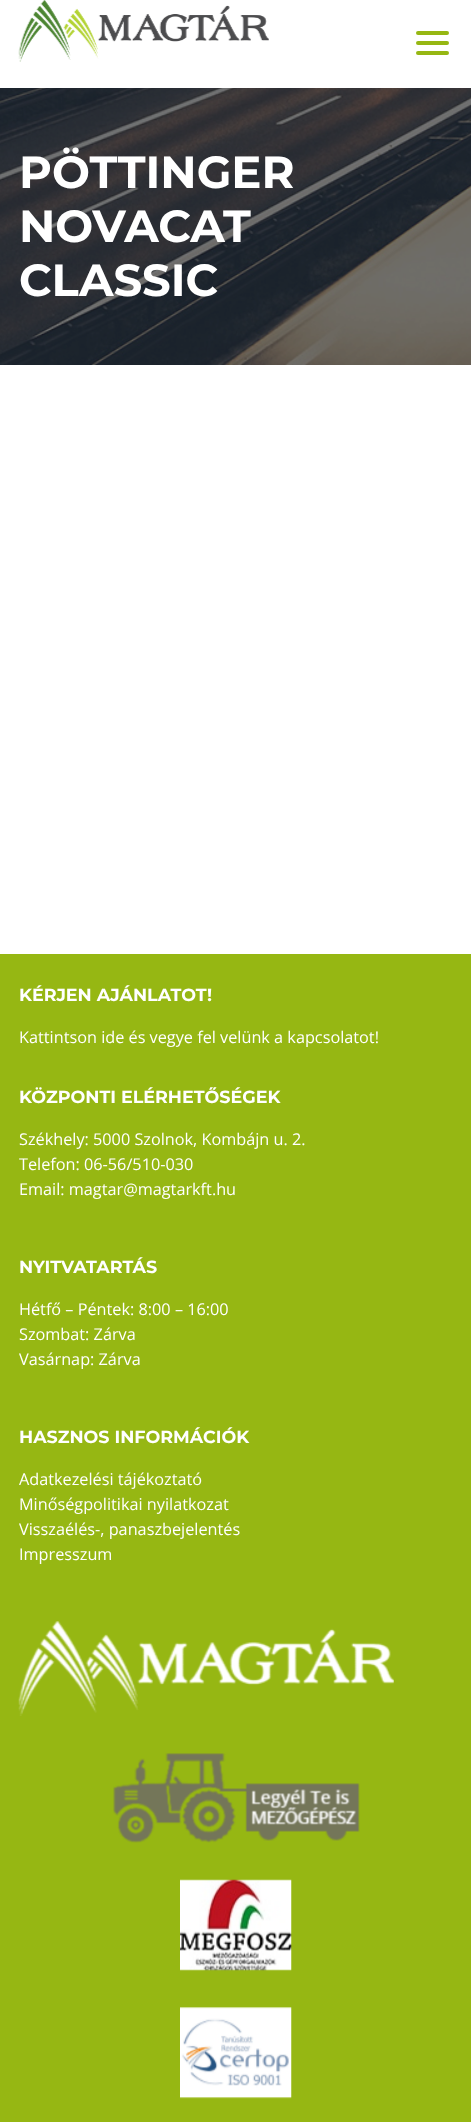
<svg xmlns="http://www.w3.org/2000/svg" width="471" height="2122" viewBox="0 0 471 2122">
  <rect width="100%" height="100%" fill="#ffffff"/>
  <image x="18" y="0" width="251" height="62" href="img1.png"/>
  <rect x="416" y="31" width="33" height="4" rx="2" fill="#96b713"/>
  <rect x="416" y="41" width="33" height="4" rx="2" fill="#96b713"/>
  <rect x="416" y="51" width="33" height="4" rx="2" fill="#96b713"/>
  <image x="0" y="88" width="471" height="277" href="img2.png"/>
  <text x="19" y="188" font-family="Montserrat" font-size="45" font-weight="bold" fill="#ffffff">PÖTTINGER</text>
  <text x="19" y="242" font-family="Montserrat" font-size="45" font-weight="bold" fill="#ffffff">NOVACAT</text>
  <text x="19" y="296" font-family="Montserrat" font-size="45" font-weight="bold" fill="#ffffff">CLASSIC</text>
  <rect x="0" y="954" width="471" height="1168" fill="#96b713"/>
  <text x="19" y="1001" font-family="Montserrat" font-size="17.5" font-weight="bold" fill="#ffffff">KÉRJEN AJÁNLATOT!</text>
  <text x="19" y="1043" font-family="Open Sans" font-size="16.25" fill="#ffffff">Kattintson ide és vegye fel velünk a kapcsolatot!</text>
  <text x="19" y="1103" font-family="Montserrat" font-size="17.5" font-weight="bold" fill="#ffffff">KÖZPONTI ELÉRHETŐSÉGEK</text>
  <text x="19" y="1145" font-family="Open Sans" font-size="16.25" fill="#ffffff">Székhely: 5000 Szolnok, Kombájn u. 2.</text>
  <text x="19" y="1170" font-family="Open Sans" font-size="16.25" fill="#ffffff">Telefon: 06-56/510-030</text>
  <text x="19" y="1195" font-family="Open Sans" font-size="16.25" fill="#ffffff">Email: magtar@magtarkft.hu</text>
  <text x="19" y="1273" font-family="Montserrat" font-size="17.5" font-weight="bold" fill="#ffffff">NYITVATARTÁS</text>
  <text x="19" y="1315" font-family="Open Sans" font-size="16.25" fill="#ffffff">Hétfő – Péntek: 8:00 – 16:00</text>
  <text x="19" y="1340" font-family="Open Sans" font-size="16.25" fill="#ffffff">Szombat: Zárva</text>
  <text x="19" y="1365" font-family="Open Sans" font-size="16.25" fill="#ffffff">Vasárnap: Zárva</text>
  <text x="19" y="1443" font-family="Montserrat" font-size="17.5" font-weight="bold" fill="#ffffff">HASZNOS INFORMÁCIÓK</text>
  <text x="19" y="1485" font-family="Open Sans" font-size="16.25" fill="#ffffff">Adatkezelési tájékoztató</text>
  <text x="19" y="1510" font-family="Open Sans" font-size="16.25" fill="#ffffff">Minőségpolitikai nyilatkozat</text>
  <text x="19" y="1535" font-family="Open Sans" font-size="16.25" fill="#ffffff">Visszaélés-, panaszbejelentés</text>
  <text x="19" y="1560" font-family="Open Sans" font-size="16.25" fill="#ffffff">Impresszum</text>
  <image x="18" y="1621" width="376" height="95" href="img3.png"/>
  <image x="113" y="1753" width="247" height="90" href="img4.png"/>
  <image x="180" y="1879" width="112" height="92" href="img5.png"/>
  <image x="180" y="2007" width="112" height="92" href="img6.png"/>
</svg>
